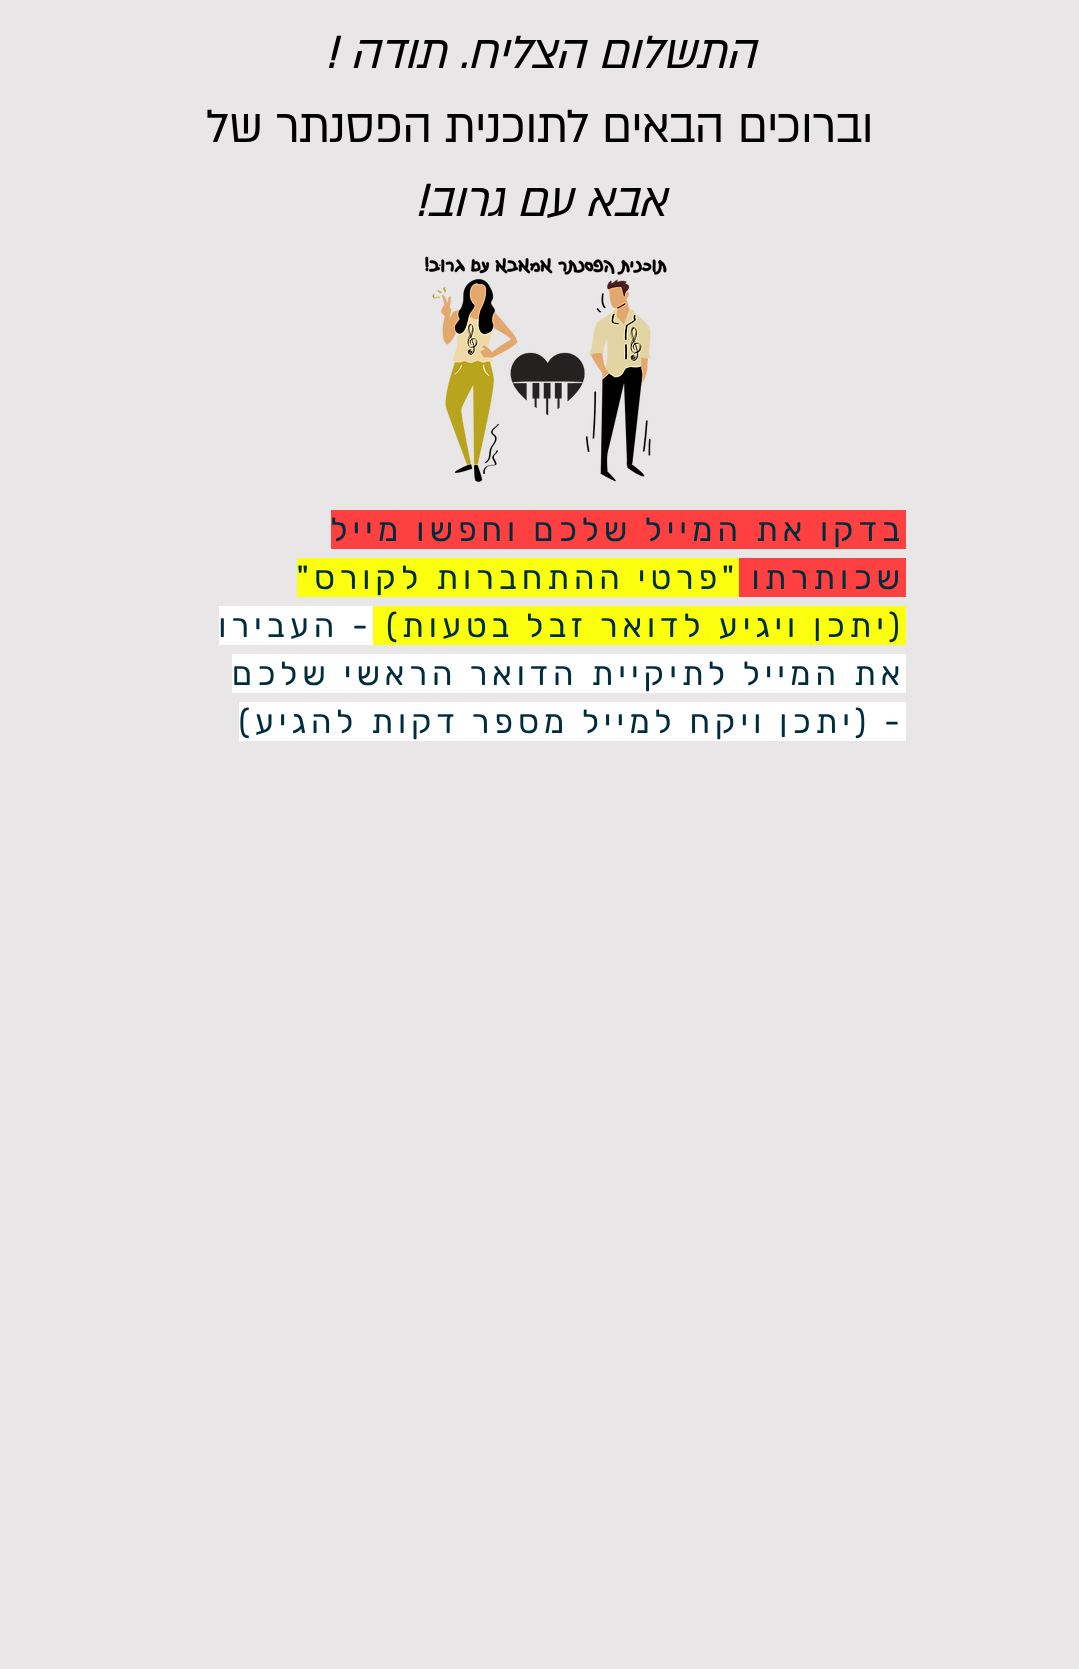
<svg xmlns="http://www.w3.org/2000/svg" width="1079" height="1669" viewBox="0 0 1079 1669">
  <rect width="100%" height="100%" fill="#e8e6e6"/>
  <text x="755" y="68" font-family="'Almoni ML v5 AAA'" font-size="51" font-weight="bold" font-style="italic" direction="rtl" fill="#000000">התשלום הצליח. תודה !</text>
  <text x="873" y="142" font-family="'Almoni ML v5 AAA'" font-size="51" font-weight="bold" direction="rtl" fill="#000000">וברוכים הבאים לתוכנית הפסנתר של</text>
  <text x="665" y="216" font-family="'Almoni ML v5 AAA'" font-size="51" font-weight="bold" font-style="italic" direction="rtl" fill="#000000">אבא עם גרוב!</text>
  <image x="425" y="256" width="242" height="226" href="img1.png"/>
  <rect x="331" y="510" width="575" height="39" fill="#ff4040"/>
  <text x="905" y="541" font-family="Rubik" font-size="33" letter-spacing="4.95" direction="rtl" fill="#002d3d">בדקו את המייל שלכם וחפשו מייל</text>
  <rect x="739" y="558" width="167" height="39" fill="#ff4040"/>
  <text x="905" y="589" font-family="Rubik" font-size="33" letter-spacing="4.95" direction="rtl" fill="#002d3d">שכותרתו</text>
  <rect x="297" y="558" width="442" height="39" fill="#fcff0d"/>
  <text x="739" y="589" font-family="Rubik" font-size="33" letter-spacing="4.95" direction="rtl" fill="#002d3d">"פרטי ההתחברות לקורס"</text>
  <rect x="373" y="606" width="533" height="39" fill="#fcff0d"/>
  <text x="905" y="637" font-family="Rubik" font-size="33" letter-spacing="4.95" direction="rtl" fill="#002d3d">(יתכן ויגיע לדואר זבל בטעות)</text>
  <rect x="219" y="606" width="154" height="39" fill="#ffffff"/>
  <text x="373" y="637" font-family="Rubik" font-size="33" letter-spacing="4.95" direction="rtl" fill="#002d3d">- העבירו</text>
  <rect x="232" y="654" width="674" height="39" fill="#ffffff"/>
  <text x="905" y="685" font-family="Rubik" font-size="33" letter-spacing="4.95" direction="rtl" fill="#002d3d">את המייל לתיקיית הדואר הראשי שלכם</text>
  <rect x="239" y="702" width="667" height="39" fill="#ffffff"/>
  <text x="905" y="733" font-family="Rubik" font-size="33" letter-spacing="4.95" direction="rtl" fill="#002d3d">- (יתכן ויקח למייל מספר דקות להגיע)</text>
</svg>
